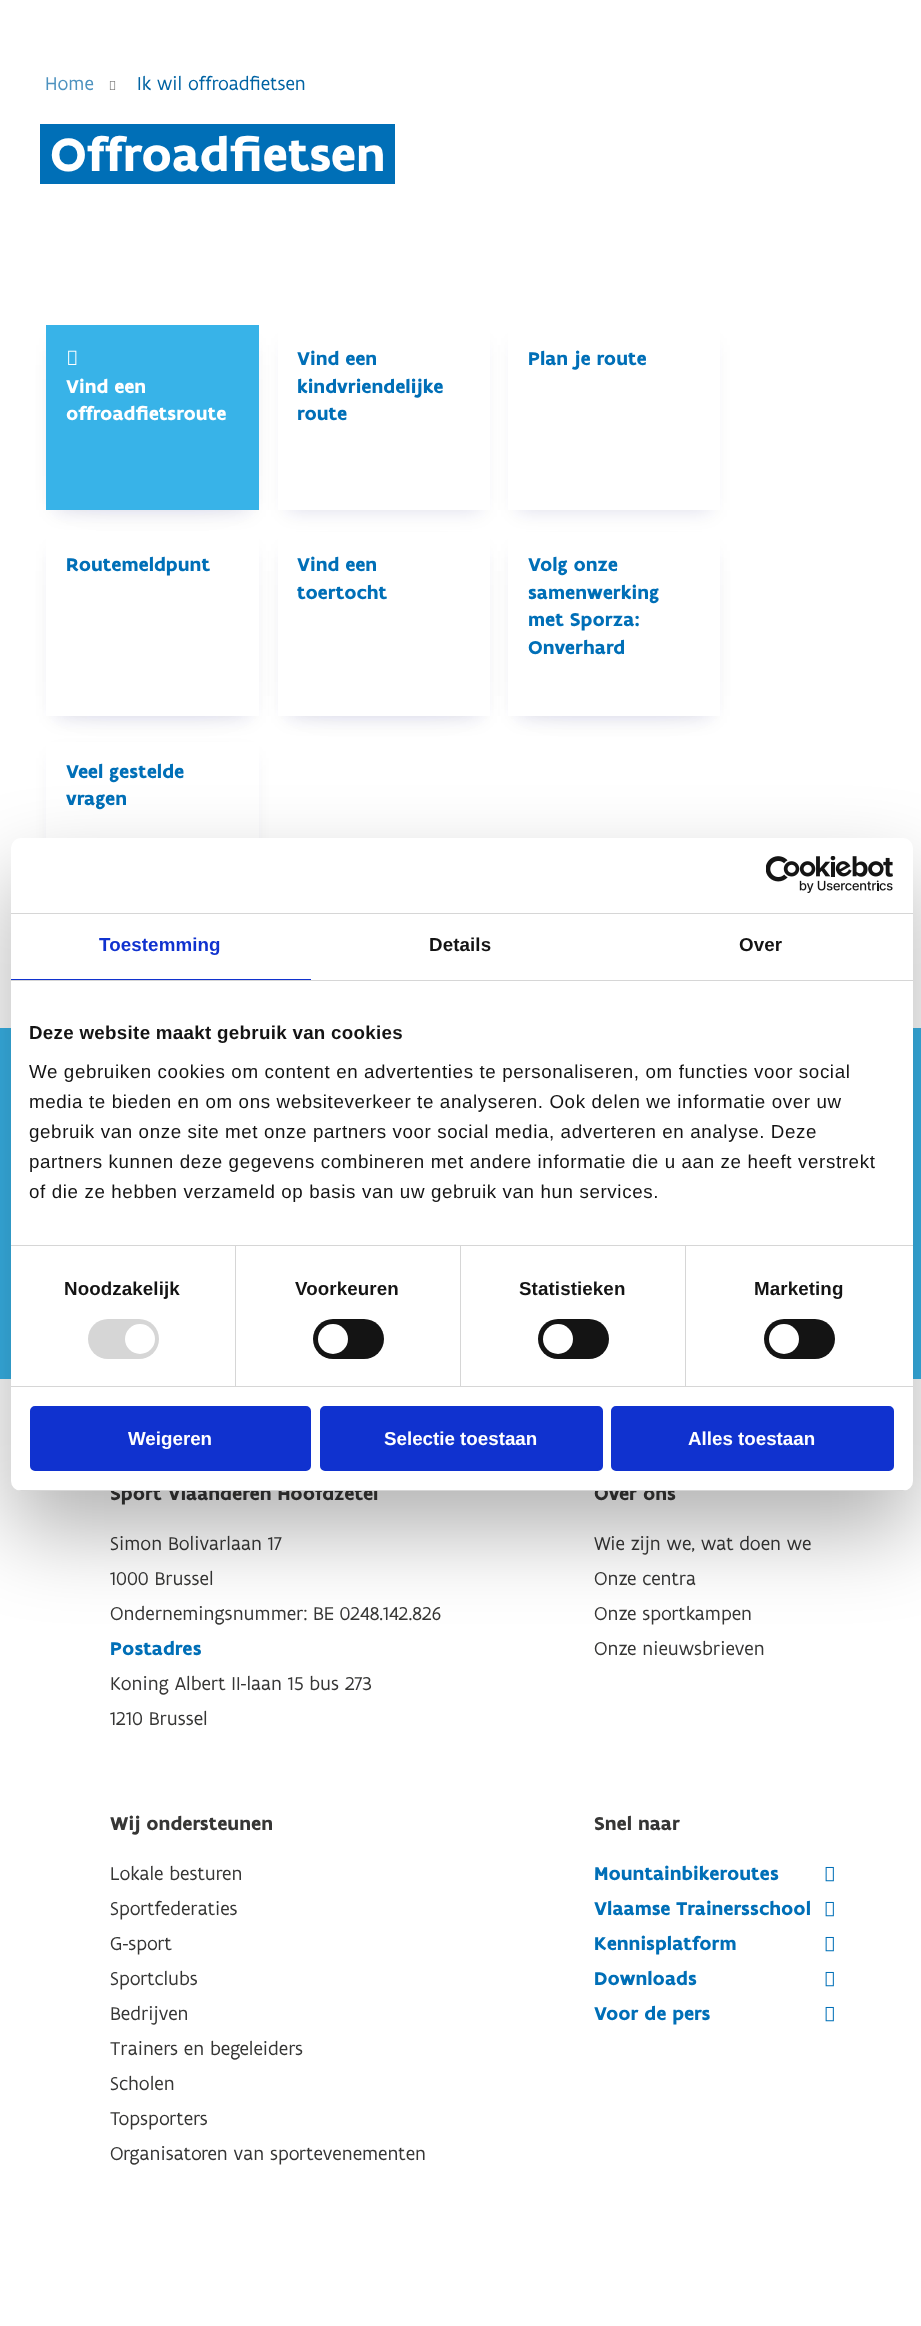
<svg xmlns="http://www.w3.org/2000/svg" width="921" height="2326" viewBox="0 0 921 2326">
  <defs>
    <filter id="blur1" x="-50%" y="-200%" width="200%" height="500%"><feGaussianBlur stdDeviation="10"/></filter>
    <filter id="blur2" x="-50%" y="-200%" width="200%" height="500%"><feGaussianBlur stdDeviation="20"/></filter>
    <clipPath id="clip1"><path d="M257 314H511V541H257ZM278 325H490V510H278Z" clip-rule="evenodd"/></clipPath>
    <clipPath id="clip2"><path d="M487 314H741V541H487ZM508 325H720V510H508Z" clip-rule="evenodd"/></clipPath>
    <filter id="blur3" x="-50%" y="-200%" width="200%" height="500%"><feGaussianBlur stdDeviation="42.5"/></filter>
    <clipPath id="clip3"><rect x="11" y="838" width="902" height="653" rx="10"/></clipPath>
  </defs>
  <rect width="100%" height="100%" fill="#ffffff"/>
  <text x="45" y="90" font-family="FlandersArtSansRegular" font-size="20" fill="#4d92bf">Home</text>
  <image x="109" y="81" width="7" height="9" href="img1.png"/>
  <text x="137" y="90" font-family="FlandersArtSansRegular" font-size="20" fill="#0063a3">Ik wil offroadfietsen</text>
  <rect x="40" y="124" width="355" height="60" fill="#006fb7"/>
  <text x="50" y="171" font-family="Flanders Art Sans" font-size="50" font-weight="bold" fill="#ffffff">Offroadfietsen</text>
  <rect x="56" y="345" width="193" height="165" fill="#003a60" fill-opacity="0.14" filter="url(#blur1)"/>
  <rect x="76" y="365" width="153" height="125" fill="#003a60" fill-opacity="0.16" filter="url(#blur2)"/>
  <rect x="46" y="325" width="213" height="185" fill="#38b3e8"/>
  <g clip-path="url(#clip1)">
    <rect x="288" y="345" width="192" height="165" fill="#003a60" fill-opacity="0.14" filter="url(#blur1)"/>
  </g>
  <text x="297" y="365" font-family="Flanders Art Sans" font-size="20" font-weight="bold" fill="#006fb7">Vind een</text>
  <text x="297" y="393" font-family="Flanders Art Sans" font-size="20" font-weight="bold" fill="#006fb7">kindvriendelijke</text>
  <text x="297" y="420" font-family="Flanders Art Sans" font-size="20" font-weight="bold" fill="#006fb7">route</text>
  <g clip-path="url(#clip2)">
    <rect x="518" y="345" width="192" height="165" fill="#003a60" fill-opacity="0.14" filter="url(#blur1)"/>
  </g>
  <text x="528" y="365" font-family="Flanders Art Sans" font-size="20" font-weight="bold" fill="#006fb7">Plan je route</text>
  <image x="68" y="350" width="9" height="15" href="img2.png"/>
  <text x="66" y="393" font-family="Flanders Art Sans" font-size="20" font-weight="bold" fill="#ffffff">Vind een</text>
  <text x="66" y="420" font-family="Flanders Art Sans" font-size="20" font-weight="bold" fill="#ffffff">offroadfietsroute</text>
  <rect x="56" y="551" width="193" height="165" fill="#003a60" fill-opacity="0.14" filter="url(#blur1)"/>
  <rect x="76" y="571" width="153" height="125" fill="#003a60" fill-opacity="0.16" filter="url(#blur2)"/>
  <rect x="46" y="531" width="213" height="185" fill="#ffffff"/>
  <text x="66" y="571" font-family="Flanders Art Sans" font-size="20" font-weight="bold" fill="#006fb7">Routemeldpunt</text>
  <rect x="288" y="551" width="192" height="165" fill="#003a60" fill-opacity="0.14" filter="url(#blur1)"/>
  <rect x="308" y="571" width="152" height="125" fill="#003a60" fill-opacity="0.16" filter="url(#blur2)"/>
  <rect x="278" y="532" width="212" height="184" fill="#ffffff"/>
  <text x="297" y="571" font-family="Flanders Art Sans" font-size="20" font-weight="bold" fill="#006fb7">Vind een</text>
  <text x="297" y="599" font-family="Flanders Art Sans" font-size="20" font-weight="bold" fill="#006fb7">toertocht</text>
  <rect x="518" y="551" width="192" height="165" fill="#003a60" fill-opacity="0.14" filter="url(#blur1)"/>
  <rect x="538" y="571" width="152" height="125" fill="#003a60" fill-opacity="0.16" filter="url(#blur2)"/>
  <rect x="508" y="532" width="212" height="184" fill="#ffffff"/>
  <text x="528" y="571" font-family="Flanders Art Sans" font-size="20" font-weight="bold" fill="#006fb7">Volg onze</text>
  <text x="528" y="599" font-family="Flanders Art Sans" font-size="20" font-weight="bold" fill="#006fb7">samenwerking</text>
  <text x="528" y="626" font-family="Flanders Art Sans" font-size="20" font-weight="bold" fill="#006fb7">met Sporza:</text>
  <text x="528" y="654" font-family="Flanders Art Sans" font-size="20" font-weight="bold" fill="#006fb7">Onverhard</text>
  <rect x="56" y="758" width="193" height="165" fill="#003a60" fill-opacity="0.14" filter="url(#blur1)"/>
  <rect x="46" y="742" width="213" height="96" fill="#ffffff"/>
  <text x="66" y="778" font-family="Flanders Art Sans" font-size="20" font-weight="bold" fill="#006fb7">Veel gestelde</text>
  <text x="66" y="805" font-family="Flanders Art Sans" font-size="20" font-weight="bold" fill="#006fb7">vragen</text>
  <rect x="0" y="1028" width="921" height="351" fill="#38b3e8"/>
  <text x="110" y="1500" font-family="Flanders Art Sans" font-size="20" font-weight="bold" fill="#363635">Sport Vlaanderen Hoofdzetel</text>
  <text x="110" y="1550" font-family="FlandersArtSansRegular" font-size="20" fill="#363635">Simon Bolivarlaan 17</text>
  <text x="110" y="1585" font-family="FlandersArtSansRegular" font-size="20" fill="#363635">1000 Brussel</text>
  <text x="110" y="1620" font-family="FlandersArtSansRegular" font-size="20" fill="#363635">Ondernemingsnummer: BE 0248.142.826</text>
  <text x="110" y="1655" font-family="Flanders Art Sans" font-size="20" font-weight="bold" fill="#006fb7">Postadres</text>
  <text x="110" y="1690" font-family="FlandersArtSansRegular" font-size="20" fill="#363635">Koning Albert II-laan 15 bus 273</text>
  <text x="110" y="1725" font-family="FlandersArtSansRegular" font-size="20" fill="#363635">1210 Brussel</text>
  <text x="594" y="1500" font-family="Flanders Art Sans" font-size="20" font-weight="bold" fill="#363635">Over ons</text>
  <text x="594" y="1550" font-family="FlandersArtSansRegular" font-size="20" fill="#363635">Wie zijn we, wat doen we</text>
  <text x="594" y="1585" font-family="FlandersArtSansRegular" font-size="20" fill="#363635">Onze centra</text>
  <text x="594" y="1620" font-family="FlandersArtSansRegular" font-size="20" fill="#363635">Onze sportkampen</text>
  <text x="594" y="1655" font-family="FlandersArtSansRegular" font-size="20" fill="#363635">Onze nieuwsbrieven</text>
  <text x="110" y="1830" font-family="Flanders Art Sans" font-size="20" font-weight="bold" fill="#363635">Wij ondersteunen</text>
  <text x="110" y="1880" font-family="FlandersArtSansRegular" font-size="20" fill="#363635">Lokale besturen</text>
  <text x="110" y="1915" font-family="FlandersArtSansRegular" font-size="20" fill="#363635">Sportfederaties</text>
  <text x="110" y="1950" font-family="FlandersArtSansRegular" font-size="20" fill="#363635">G-sport</text>
  <text x="110" y="1985" font-family="FlandersArtSansRegular" font-size="20" fill="#363635">Sportclubs</text>
  <text x="110" y="2020" font-family="FlandersArtSansRegular" font-size="20" fill="#363635">Bedrijven</text>
  <text x="110" y="2055" font-family="FlandersArtSansRegular" font-size="20" fill="#363635">Trainers en begeleiders</text>
  <text x="110" y="2090" font-family="FlandersArtSansRegular" font-size="20" fill="#363635">Scholen</text>
  <text x="110" y="2125" font-family="FlandersArtSansRegular" font-size="20" fill="#363635">Topsporters</text>
  <text x="110" y="2160" font-family="FlandersArtSansRegular" font-size="20" fill="#363635">Organisatoren van sportevenementen</text>
  <text x="594" y="1830" font-family="Flanders Art Sans" font-size="20" font-weight="bold" fill="#363635">Snel naar</text>
  <text x="594" y="1880" font-family="Flanders Art Sans" font-size="20" font-weight="bold" fill="#006fb7">Mountainbikeroutes</text>
  <image x="825" y="1866" width="9" height="16" href="img3.png"/>
  <text x="594" y="1915" font-family="Flanders Art Sans" font-size="20" font-weight="bold" fill="#006fb7">Vlaamse Trainersschool</text>
  <image x="825" y="1901" width="9" height="16" href="img3.png"/>
  <text x="594" y="1950" font-family="Flanders Art Sans" font-size="20" font-weight="bold" fill="#006fb7">Kennisplatform</text>
  <image x="825" y="1936" width="9" height="16" href="img3.png"/>
  <text x="594" y="1985" font-family="Flanders Art Sans" font-size="20" font-weight="bold" fill="#006fb7">Downloads</text>
  <image x="825" y="1971" width="9" height="16" href="img3.png"/>
  <text x="594" y="2020" font-family="Flanders Art Sans" font-size="20" font-weight="bold" fill="#006fb7">Voor de pers</text>
  <image x="825" y="2006" width="9" height="16" href="img3.png"/>
  <rect x="11" y="878" width="902" height="653" rx="10" fill="#000000" fill-opacity="0.3" filter="url(#blur3)"/>
  <rect x="11" y="838" width="902" height="653" rx="10" fill="#ffffff"/>
  <rect x="11" y="913" width="902" height="1" fill="#d6d6d6"/>
  <image x="766" y="856" width="127" height="37" href="img4.png"/>
  <rect x="11" y="980" width="902" height="1" fill="#d6d6d6"/>
  <rect x="11" y="979" width="300" height="1" fill="#1032cf"/>
  <text x="99" y="951" font-family="Liberation Sans" font-size="18.75" font-weight="bold" letter-spacing="0.1" fill="#1032cf">Toestemming</text>
  <text x="429" y="951" font-family="Liberation Sans" font-size="18.75" font-weight="bold" letter-spacing="0.1" fill="#141414">Details</text>
  <text x="739" y="951" font-family="Liberation Sans" font-size="18.75" font-weight="bold" letter-spacing="0.1" fill="#141414">Over</text>
  <rect x="11" y="1245" width="902" height="1" fill="#d6d6d6"/>
  <text x="29" y="1039" font-family="Liberation Sans" font-size="18.75" font-weight="bold" letter-spacing="0.3" fill="#141414">Deze website maakt gebruik van cookies</text>
  <text x="29" y="1078" font-family="Liberation Sans" font-size="18.75" letter-spacing="0.62" fill="#141414">We gebruiken cookies om content en advertenties te personaliseren, om functies voor social</text>
  <text x="29" y="1108" font-family="Liberation Sans" font-size="18.75" letter-spacing="0.62" fill="#141414">media te bieden en om ons websiteverkeer te analyseren. Ook delen we informatie over uw</text>
  <text x="29" y="1138" font-family="Liberation Sans" font-size="18.75" letter-spacing="0.62" fill="#141414">gebruik van onze site met onze partners voor social media, adverteren en analyse. Deze</text>
  <text x="29" y="1168" font-family="Liberation Sans" font-size="18.75" letter-spacing="0.62" fill="#141414">partners kunnen deze gegevens combineren met andere informatie die u aan ze heeft verstrekt</text>
  <text x="29" y="1198" font-family="Liberation Sans" font-size="18.75" letter-spacing="0.62" fill="#141414">of die ze hebben verzameld op basis van uw gebruik van hun services.</text>
  <rect x="11" y="1386" width="902" height="1" fill="#d6d6d6"/>
  <rect x="235" y="1246" width="1" height="140" fill="#d6d6d6"/>
  <text x="64" y="1295" font-family="Liberation Sans" font-size="18.75" font-weight="bold" letter-spacing="0.1" fill="#141414">Noodzakelijk</text>
  <rect x="88" y="1319" width="71" height="40" rx="20" fill="#d6d6d6"/>
  <circle cx="140" cy="1339" r="15" fill="#ffffff"/>
  <rect x="460" y="1246" width="1" height="140" fill="#d6d6d6"/>
  <text x="295" y="1295" font-family="Liberation Sans" font-size="18.75" font-weight="bold" letter-spacing="0.1" fill="#141414">Voorkeuren</text>
  <rect x="313" y="1319" width="71" height="40" rx="20" fill="#141414"/>
  <circle cx="333" cy="1339" r="15" fill="#ffffff"/>
  <rect x="685" y="1246" width="1" height="140" fill="#d6d6d6"/>
  <text x="519" y="1295" font-family="Liberation Sans" font-size="18.75" font-weight="bold" letter-spacing="0.1" fill="#141414">Statistieken</text>
  <rect x="538" y="1319" width="71" height="40" rx="20" fill="#141414"/>
  <circle cx="558" cy="1339" r="15" fill="#ffffff"/>
  <text x="754" y="1295" font-family="Liberation Sans" font-size="18.75" font-weight="bold" letter-spacing="0.1" fill="#141414">Marketing</text>
  <rect x="764" y="1319" width="71" height="40" rx="20" fill="#141414"/>
  <circle cx="784" cy="1339" r="15" fill="#ffffff"/>
  <g clip-path="url(#clip3)">
    <rect x="11" y="1490" width="902" height="1" fill="#d6d6d6"/>
  </g>
  <rect x="31.5" y="1407.5" width="278" height="62" rx="3.5" fill="#1032cf" stroke="#1032cf" stroke-width="3"/>
  <text x="128" y="1445" font-family="Liberation Sans" font-size="18.75" font-weight="bold" fill="#ffffff">Weigeren</text>
  <rect x="321.5" y="1407.5" width="280" height="62" rx="3.5" fill="#1032cf" stroke="#1032cf" stroke-width="3"/>
  <text x="384" y="1445" font-family="Liberation Sans" font-size="18.75" font-weight="bold" fill="#ffffff">Selectie toestaan</text>
  <rect x="612.5" y="1407.5" width="280" height="62" rx="3.5" fill="#1032cf" stroke="#1032cf" stroke-width="3"/>
  <text x="688" y="1445" font-family="Liberation Sans" font-size="18.75" font-weight="bold" fill="#ffffff">Alles toestaan</text>
</svg>
